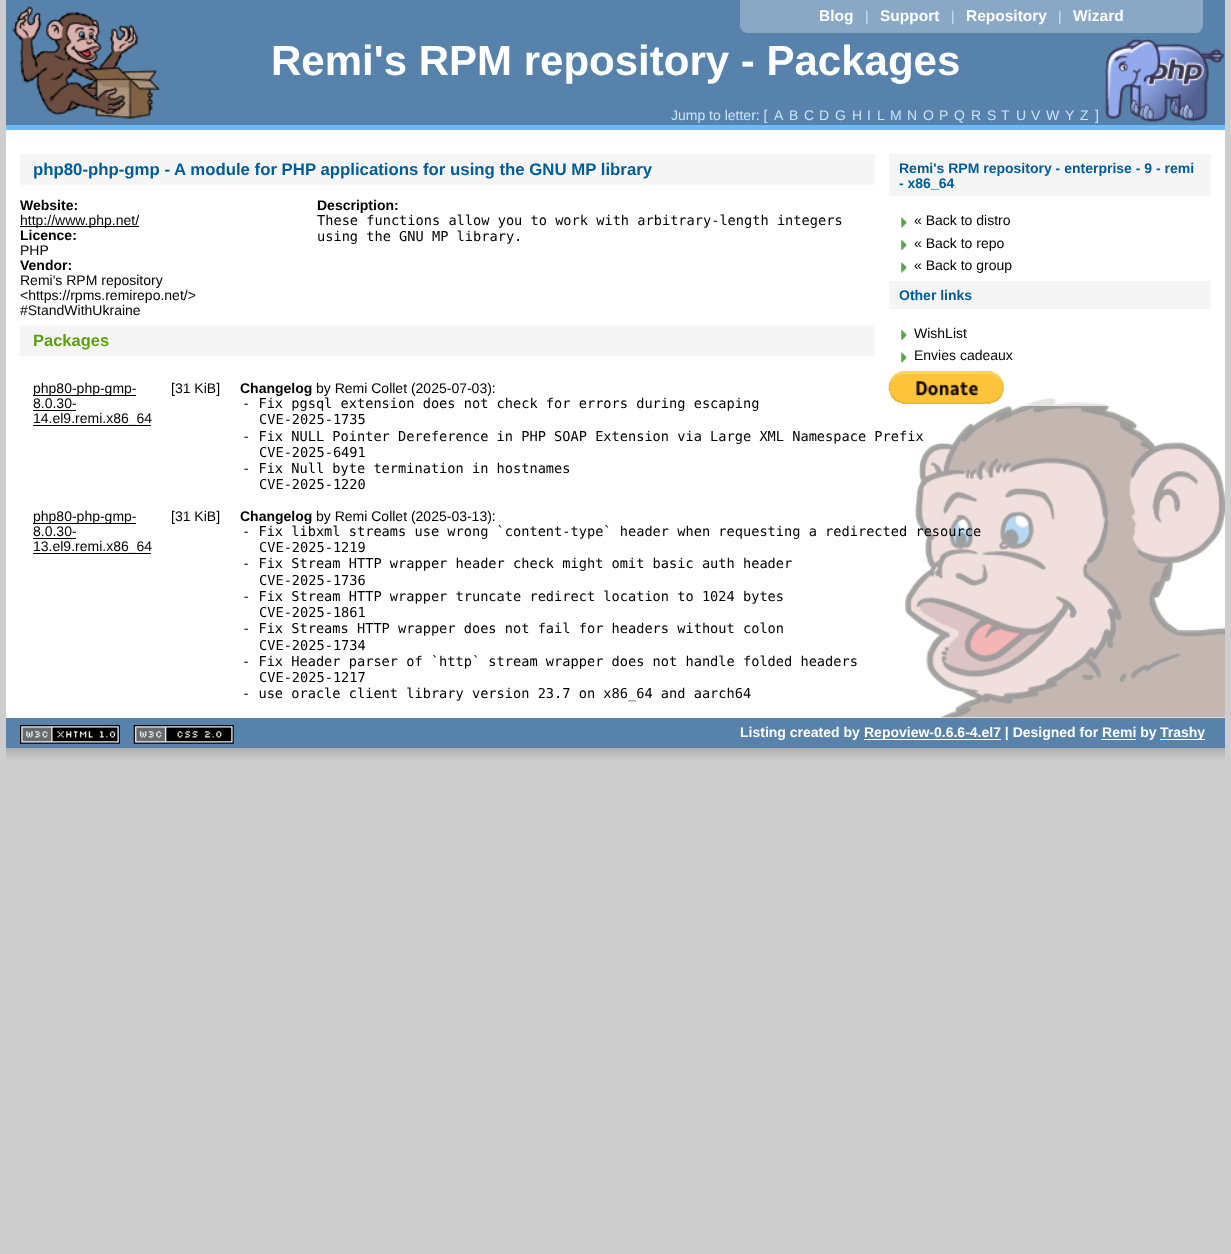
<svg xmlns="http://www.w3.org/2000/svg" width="1231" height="1254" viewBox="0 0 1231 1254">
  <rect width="100%" height="100%" fill="#cdcdcd"/>
  <rect x="6" y="130" width="1219" height="588" fill="#ffffff"/>
  <image x="905" y="397" width="320" height="321" href="img1.png"/>
  <rect x="6" y="0" width="1219" height="125" fill="#5782ac"/>
  <path d="M740 0H1203V25C1203 29.5 1199.5 33 1195 33H748C743.5 33 740 29.5 740 25Z" fill="#89a8c5"/>
  <text x="819" y="21" font-family="Liberation Sans" font-size="15.5" font-weight="bold" fill="#ffffff">Blog</text>
  <text x="865" y="21" font-family="Liberation Sans" font-size="14" fill="#cae4fc">|</text>
  <text x="880" y="21" font-family="Liberation Sans" font-size="15.5" font-weight="bold" fill="#ffffff">Support</text>
  <text x="951" y="21" font-family="Liberation Sans" font-size="14" fill="#cae4fc">|</text>
  <text x="966" y="21" font-family="Liberation Sans" font-size="15.5" font-weight="bold" fill="#ffffff">Repository</text>
  <text x="1058" y="21" font-family="Liberation Sans" font-size="14" fill="#cae4fc">|</text>
  <text x="1073" y="21" font-family="Liberation Sans" font-size="15.5" font-weight="bold" fill="#ffffff">Wizard</text>
  <image x="1105" y="38" width="119" height="84" href="img2.png"/>
  <rect x="6" y="125" width="1219" height="5" fill="#6db9f7"/>
  <image x="12" y="6" width="149" height="113" href="img3.png"/>
  <text x="271" y="75" font-family="Liberation Sans" font-size="42" font-weight="bold" fill="#ffffff">Remi's RPM repository - Packages</text>
  <text x="671" y="120" font-family="Liberation Sans" font-size="14" fill="#cae4fc">Jump to letter: [</text>
  <text x="774" y="120" font-family="Liberation Sans" font-size="14" fill="#cae4fc">A</text>
  <text x="789" y="120" font-family="Liberation Sans" font-size="14" fill="#cae4fc">B</text>
  <text x="804" y="120" font-family="Liberation Sans" font-size="14" fill="#cae4fc">C</text>
  <text x="819" y="120" font-family="Liberation Sans" font-size="14" fill="#cae4fc">D</text>
  <text x="835" y="120" font-family="Liberation Sans" font-size="14" fill="#cae4fc">G</text>
  <text x="852" y="120" font-family="Liberation Sans" font-size="14" fill="#cae4fc">H</text>
  <text x="867" y="120" font-family="Liberation Sans" font-size="14" fill="#cae4fc">I</text>
  <text x="877" y="120" font-family="Liberation Sans" font-size="14" fill="#cae4fc">L</text>
  <text x="890" y="120" font-family="Liberation Sans" font-size="14" fill="#cae4fc">M</text>
  <text x="907" y="120" font-family="Liberation Sans" font-size="14" fill="#cae4fc">N</text>
  <text x="923" y="120" font-family="Liberation Sans" font-size="14" fill="#cae4fc">O</text>
  <text x="939" y="120" font-family="Liberation Sans" font-size="14" fill="#cae4fc">P</text>
  <text x="954" y="120" font-family="Liberation Sans" font-size="14" fill="#cae4fc">Q</text>
  <text x="971" y="120" font-family="Liberation Sans" font-size="14" fill="#cae4fc">R</text>
  <text x="987" y="120" font-family="Liberation Sans" font-size="14" fill="#cae4fc">S</text>
  <text x="1001" y="120" font-family="Liberation Sans" font-size="14" fill="#cae4fc">T</text>
  <text x="1016" y="120" font-family="Liberation Sans" font-size="14" fill="#cae4fc">U</text>
  <text x="1031" y="120" font-family="Liberation Sans" font-size="14" fill="#cae4fc">V</text>
  <text x="1046" y="120" font-family="Liberation Sans" font-size="14" fill="#cae4fc">W</text>
  <text x="1065" y="120" font-family="Liberation Sans" font-size="14" fill="#cae4fc">Y</text>
  <text x="1080" y="120" font-family="Liberation Sans" font-size="14" fill="#cae4fc">Z</text>
  <text x="1095" y="120" font-family="Liberation Sans" font-size="14" fill="#cae4fc">]</text>
  <rect x="20" y="154" width="855" height="31" fill="#f5f5f5"/>
  <text x="33" y="175" font-family="Liberation Sans" font-size="16.8" font-weight="bold" fill="#005d99">php80-php-gmp - A module for PHP applications for using the GNU MP library</text>
  <text x="20" y="210" font-family="Liberation Sans" font-size="14" font-weight="bold" fill="#000000">Website:</text>
  <rect x="20" y="226" width="119" height="1" fill="#000000"/>
  <text x="20" y="225" font-family="Liberation Sans" font-size="14" fill="#000000">http://www.php.net/</text>
  <text x="20" y="240" font-family="Liberation Sans" font-size="14" font-weight="bold" fill="#000000">Licence:</text>
  <text x="20" y="255" font-family="Liberation Sans" font-size="14" fill="#000000">PHP</text>
  <text x="20" y="270" font-family="Liberation Sans" font-size="14" font-weight="bold" fill="#000000">Vendor:</text>
  <text x="20" y="285" font-family="Liberation Sans" font-size="14" fill="#000000">Remi's RPM repository</text>
  <text x="20" y="300" font-family="Liberation Sans" font-size="14" fill="#000000">&lt;https://rpms.remirepo.net/&gt;</text>
  <text x="20" y="315" font-family="Liberation Sans" font-size="14" fill="#000000">#StandWithUkraine</text>
  <text x="317" y="210" font-family="Liberation Sans" font-size="14" font-weight="bold" fill="#000000">Description:</text>
  <text x="317" y="225" font-family="DejaVu Sans Mono" font-size="13.65" fill="#000000">These functions allow you to work with arbitrary-length integers</text>
  <text x="317" y="241" font-family="DejaVu Sans Mono" font-size="13.65" fill="#000000">using the GNU MP library.</text>
  <rect x="20" y="325" width="855" height="31" fill="#f5f5f5"/>
  <text x="33" y="346" font-family="Liberation Sans" font-size="16.5" font-weight="bold" fill="#5e9e14">Packages</text>
  <rect x="33" y="395" width="103" height="1" fill="#000000"/>
  <text x="33" y="393" font-family="Liberation Sans" font-size="14" fill="#000000">php80-php-gmp-</text>
  <text x="33" y="408" font-family="Liberation Sans" font-size="14" fill="#000000">8.0.30-</text>
  <rect x="33" y="410" width="43" height="1" fill="#000000"/>
  <rect x="33" y="425" width="118" height="1" fill="#000000"/>
  <text x="33" y="423" font-family="Liberation Sans" font-size="14" fill="#000000">14.el9.remi.x86_64</text>
  <text x="171" y="393" font-family="Liberation Sans" font-size="14" fill="#000000">[31 KiB]</text>
  <text x="240" y="393" font-family="Liberation Sans" font-size="14" font-weight="bold" fill="#000000">Changelog</text>
  <text x="316" y="393" font-family="Liberation Sans" font-size="14" fill="#000000">by Remi Collet (2025-07-03):</text>
  <text x="242" y="408" font-family="DejaVu Sans Mono" font-size="13.65" fill="#000000">- Fix pgsql extension does not check for errors during escaping</text>
  <text x="259" y="424" font-family="DejaVu Sans Mono" font-size="13.65" fill="#000000">CVE-2025-1735</text>
  <text x="242" y="441" font-family="DejaVu Sans Mono" font-size="13.65" fill="#000000">- Fix NULL Pointer Dereference in PHP SOAP Extension via Large XML Namespace Prefix</text>
  <text x="259" y="457" font-family="DejaVu Sans Mono" font-size="13.65" fill="#000000">CVE-2025-6491</text>
  <text x="242" y="473" font-family="DejaVu Sans Mono" font-size="13.65" fill="#000000">- Fix Null byte termination in hostnames</text>
  <text x="259" y="489" font-family="DejaVu Sans Mono" font-size="13.65" fill="#000000">CVE-2025-1220</text>
  <rect x="33" y="523" width="103" height="1" fill="#000000"/>
  <text x="33" y="521" font-family="Liberation Sans" font-size="14" fill="#000000">php80-php-gmp-</text>
  <text x="33" y="536" font-family="Liberation Sans" font-size="14" fill="#000000">8.0.30-</text>
  <rect x="33" y="538" width="43" height="1" fill="#000000"/>
  <rect x="33" y="553" width="118" height="1" fill="#000000"/>
  <text x="33" y="551" font-family="Liberation Sans" font-size="14" fill="#000000">13.el9.remi.x86_64</text>
  <text x="171" y="521" font-family="Liberation Sans" font-size="14" fill="#000000">[31 KiB]</text>
  <text x="240" y="521" font-family="Liberation Sans" font-size="14" font-weight="bold" fill="#000000">Changelog</text>
  <text x="316" y="521" font-family="Liberation Sans" font-size="14" fill="#000000">by Remi Collet (2025-03-13):</text>
  <text x="242" y="536" font-family="DejaVu Sans Mono" font-size="13.65" fill="#000000">- Fix libxml streams use wrong `content-type` header when requesting a redirected resource</text>
  <text x="259" y="552" font-family="DejaVu Sans Mono" font-size="13.65" fill="#000000">CVE-2025-1219</text>
  <text x="242" y="568" font-family="DejaVu Sans Mono" font-size="13.65" fill="#000000">- Fix Stream HTTP wrapper header check might omit basic auth header</text>
  <text x="259" y="585" font-family="DejaVu Sans Mono" font-size="13.65" fill="#000000">CVE-2025-1736</text>
  <text x="242" y="601" font-family="DejaVu Sans Mono" font-size="13.65" fill="#000000">- Fix Stream HTTP wrapper truncate redirect location to 1024 bytes</text>
  <text x="259" y="617" font-family="DejaVu Sans Mono" font-size="13.65" fill="#000000">CVE-2025-1861</text>
  <text x="242" y="633" font-family="DejaVu Sans Mono" font-size="13.65" fill="#000000">- Fix Streams HTTP wrapper does not fail for headers without colon</text>
  <text x="259" y="650" font-family="DejaVu Sans Mono" font-size="13.65" fill="#000000">CVE-2025-1734</text>
  <text x="242" y="666" font-family="DejaVu Sans Mono" font-size="13.65" fill="#000000">- Fix Header parser of `http` stream wrapper does not handle folded headers</text>
  <text x="259" y="682" font-family="DejaVu Sans Mono" font-size="13.65" fill="#000000">CVE-2025-1217</text>
  <text x="242" y="698" font-family="DejaVu Sans Mono" font-size="13.65" fill="#000000">- use oracle client library version 23.7 on x86_64 and aarch64</text>
  <rect x="889" y="154" width="322" height="252" rx="8" fill="#ffffff" fill-opacity="0.7"/>
  <rect x="889" y="154" width="322" height="42" fill="#f5f5f5"/>
  <text x="899" y="173" font-family="Liberation Sans" font-size="14" font-weight="bold" fill="#005d99">Remi's RPM repository - enterprise - 9 - remi</text>
  <text x="899" y="188" font-family="Liberation Sans" font-size="14" font-weight="bold" fill="#005d99">- x86_64</text>
  <image x="901" y="217" width="6" height="11" href="img4.png"/>
  <text x="914" y="225" font-family="Liberation Sans" font-size="14" fill="#000000">« Back to distro</text>
  <image x="901" y="240" width="6" height="10" href="img5.png"/>
  <text x="914" y="248" font-family="Liberation Sans" font-size="14" fill="#000000">« Back to repo</text>
  <image x="901" y="262" width="6" height="11" href="img4.png"/>
  <text x="914" y="270" font-family="Liberation Sans" font-size="14" fill="#000000">« Back to group</text>
  <rect x="889" y="281" width="322" height="28" fill="#f5f5f5"/>
  <text x="899" y="300" font-family="Liberation Sans" font-size="14" font-weight="bold" fill="#005d99">Other links</text>
  <image x="901" y="330" width="6" height="10" href="img5.png"/>
  <text x="914" y="338" font-family="Liberation Sans" font-size="14" fill="#000000">WishList</text>
  <image x="901" y="352" width="6" height="11" href="img4.png"/>
  <text x="914" y="360" font-family="Liberation Sans" font-size="14" fill="#000000">Envies cadeaux</text>
  <image x="888" y="371" width="116" height="33" href="img6.png"/>
  <image x="6" y="748" width="1219" height="12" href="img7.png"/>
  <rect x="6" y="718" width="1219" height="30" fill="#5682ab"/>
  <image x="20" y="725" width="100" height="19" href="img8.png"/>
  <image x="133" y="725" width="101" height="19" href="img9.png"/>
  <text x="740" y="737" font-family="Liberation Sans" font-size="14" font-weight="bold" fill="#ffffff">Listing created by</text>
  <path d="M864 740.5H1001" fill="none" stroke="#808080" stroke-width="1.2" stroke-dasharray="1.25 1.25"/>
  <rect x="864" y="739" width="137" height="1" fill="#ffffff"/>
  <text x="864" y="737" font-family="Liberation Sans" font-size="14" font-weight="bold" fill="#ffffff">Repoview-0.6.6-4.el7 | Designed for Remi by</text>
  <rect x="1160" y="739" width="45" height="1" fill="#ffffff"/>
  <text x="1160" y="737" font-family="Liberation Sans" font-size="14" font-weight="bold" fill="#ffffff">Trashy</text>
  <rect x="1101" y="739" width="35" height="1" fill="#ffffff"/>
</svg>
